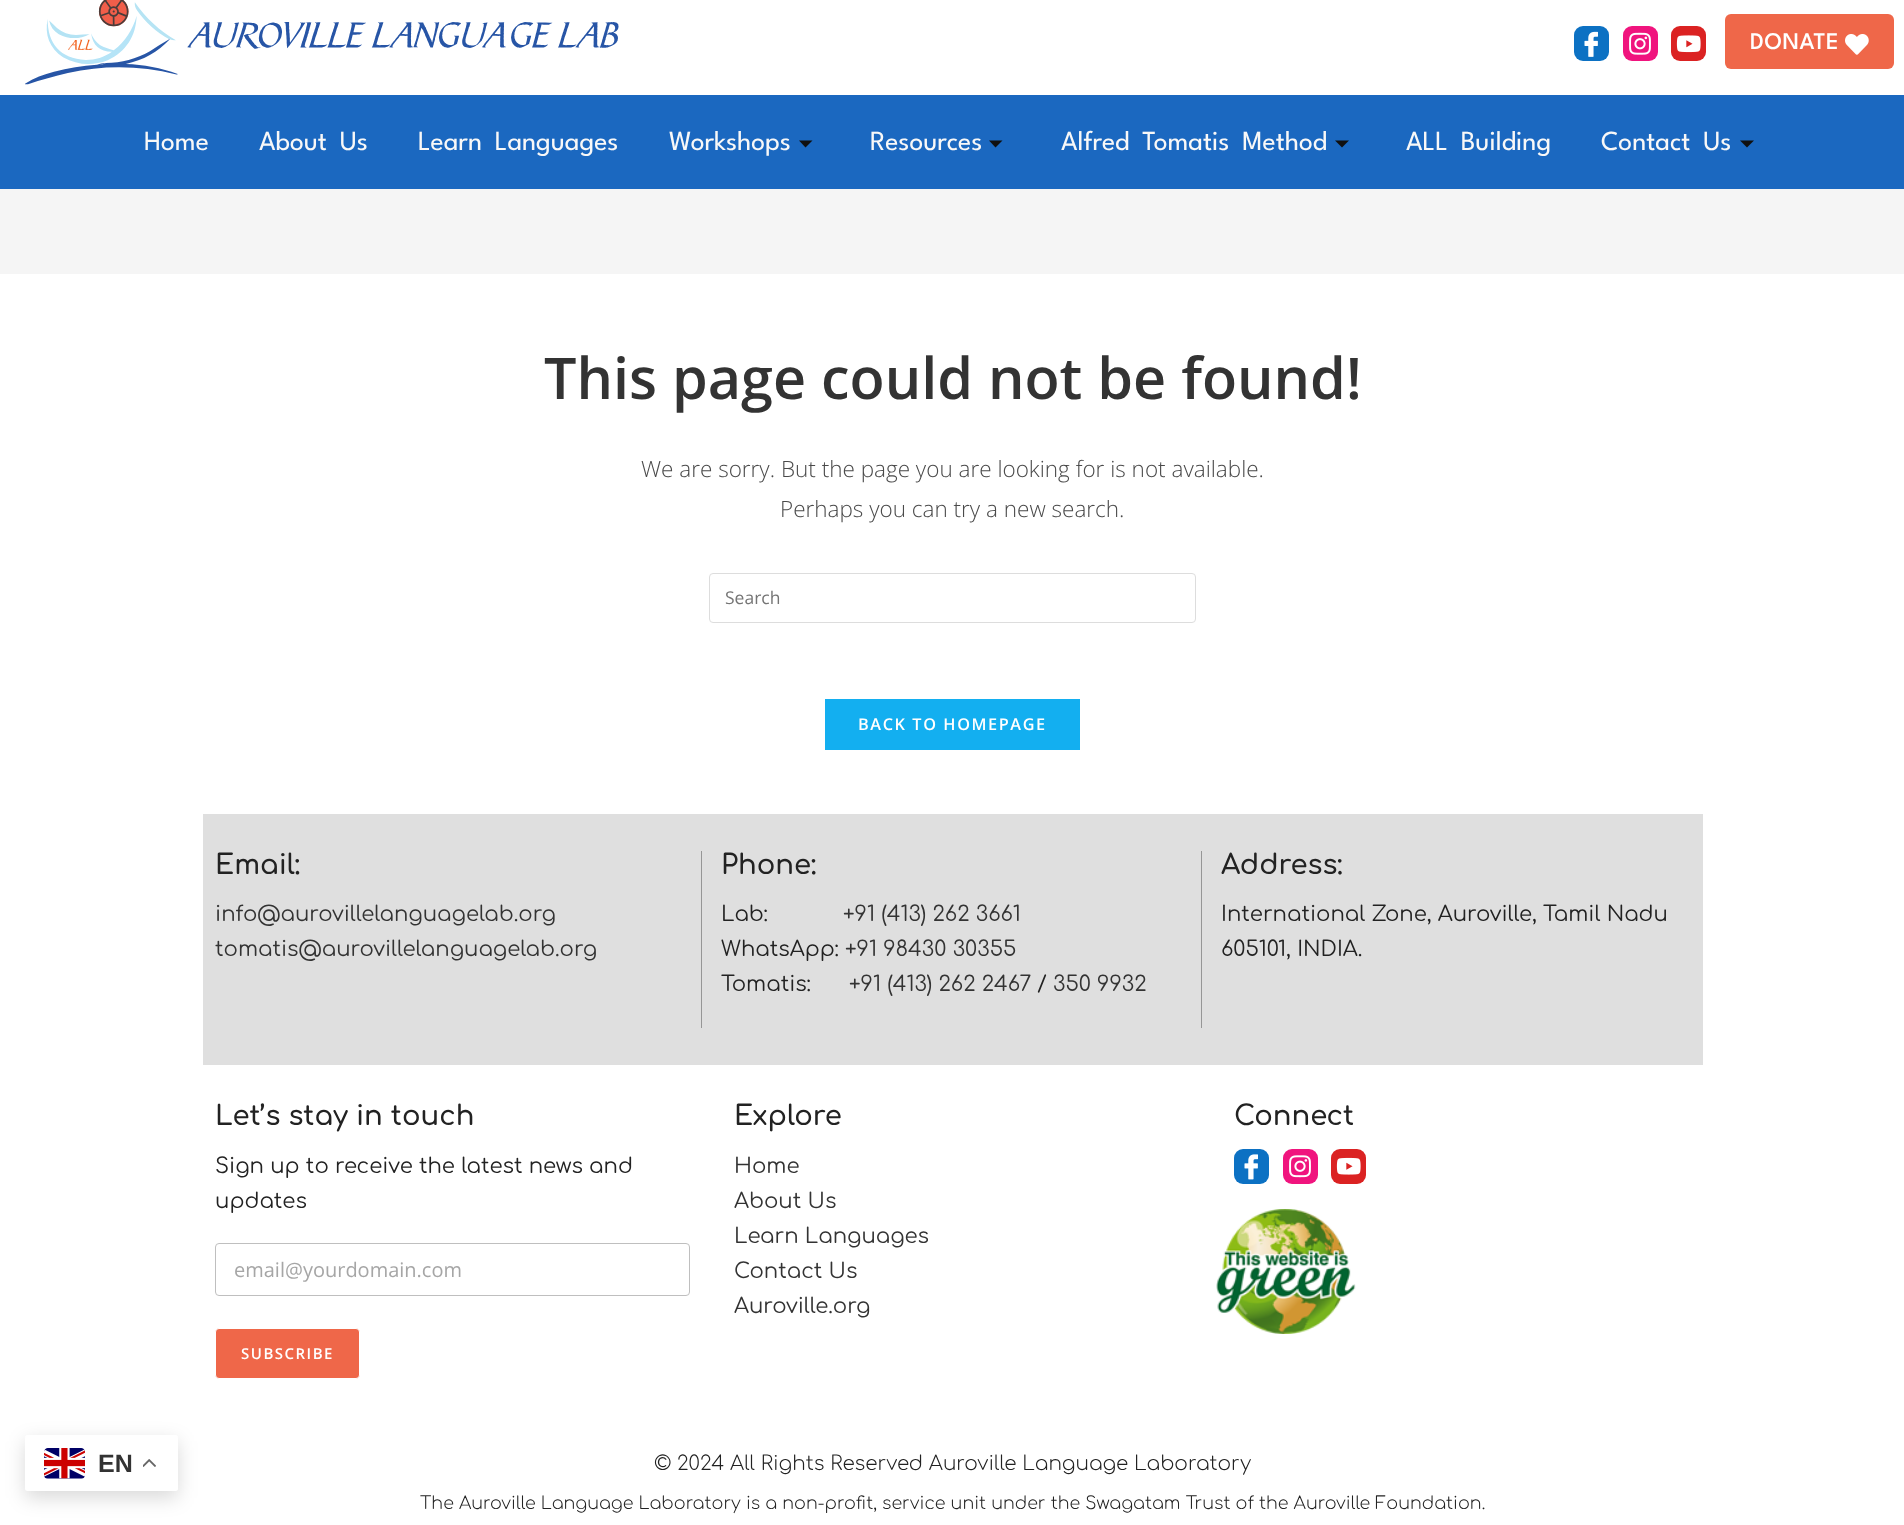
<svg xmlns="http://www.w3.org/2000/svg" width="1904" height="1525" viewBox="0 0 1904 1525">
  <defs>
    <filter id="blur1" x="-50%" y="-200%" width="200%" height="500%"><feGaussianBlur stdDeviation="9.5"/></filter>
  </defs>
  <rect width="100%" height="100%" fill="#ffffff"/>
  <rect x="25" y="1441" width="153" height="57" rx="2.5" fill="#000000" fill-opacity="0.15" filter="url(#blur1)"/>
  <rect x="25" y="1435" width="153" height="56" rx="2.5" fill="#ffffff"/>
  <image x="44" y="1448" width="41" height="31" href="img1.png"/>
  <text x="98" y="1472" font-family="Liberation Sans" font-size="25" font-weight="bold" fill="#333333">EN</text>
  <image x="143" y="1459" width="13" height="8" href="img2.png"/>
  <image x="25" y="0" width="594" height="85" href="img3.png"/>
  <rect x="1574" y="26" width="35" height="35" rx="9" fill="#0c71c3"/>
  <image x="1584" y="31" width="14" height="26" href="img4.png"/>
  <rect x="1623" y="26" width="35" height="35" rx="9" fill="#f0147e"/>
  <image x="1629" y="32" width="22" height="23" href="img5.png"/>
  <rect x="1671" y="26" width="35" height="35" rx="9" fill="#db2222"/>
  <image x="1676" y="35" width="25" height="18" href="img6.png"/>
  <rect x="1725" y="14" width="169" height="55" rx="6" fill="#ef6749"/>
  <text x="1750" y="49" font-family="League Spartan" font-size="24" font-weight="500" letter-spacing="0.5" fill="#ffffff">DONATE</text>
  <image x="1845" y="34" width="24" height="21" href="img7.png"/>
  <rect x="0" y="95" width="1904" height="94" fill="#1b68c0"/>
  <text x="144" y="150" font-family="League Spartan" font-size="27.5" fill="#f8f8f8">Home</text>
  <text x="259" y="150" word-spacing="6" font-family="League Spartan" font-size="27.5" fill="#f8f8f8">About Us</text>
  <text x="418" y="150" word-spacing="6" font-family="League Spartan" font-size="27.5" fill="#f8f8f8">Learn Languages</text>
  <text x="669" y="150" font-family="League Spartan" font-size="27.5" fill="#f8f8f8">Workshops</text>
  <path d="M799 140.5H812.5L805.5 147.5Z" fill="#101010"/>
  <text x="870" y="150" font-family="League Spartan" font-size="27.5" fill="#f8f8f8">Resources</text>
  <path d="M989 140.5H1002.5L995.5 147.5Z" fill="#101010"/>
  <text x="1061" y="150" word-spacing="6" font-family="League Spartan" font-size="27.5" fill="#f8f8f8">Alfred Tomatis Method</text>
  <path d="M1335 140.5H1349L1342 147.5Z" fill="#101010"/>
  <text x="1406" y="150" word-spacing="6" font-family="League Spartan" font-size="27.5" fill="#f8f8f8">ALL Building</text>
  <text x="1601" y="150" word-spacing="6" font-family="League Spartan" font-size="27.5" fill="#f8f8f8">Contact Us</text>
  <path d="M1740 140.5H1754L1747 147.5Z" fill="#101010"/>
  <rect x="0" y="189" width="1904" height="85" fill="#f5f5f5"/>
  <text x="544" y="399" font-family="Open Sans" font-size="57.5" font-weight="600" fill="#333333">This page could not be found!</text>
  <text x="641" y="477" font-family="Open Sans" font-size="22.5" font-weight="300" fill="#4a4a4a">We are sorry. But the page you are looking for is not available.</text>
  <text x="780" y="517" font-family="Open Sans" font-size="22.5" font-weight="300" fill="#4a4a4a">Perhaps you can try a new search.</text>
  <rect x="709.5" y="573.5" width="486" height="49" rx="3.5" fill="none" stroke="#dddddd"/>
  <text x="725" y="604" font-family="Open Sans" font-size="17.5" fill="#757575">Search</text>
  <rect x="825" y="699" width="255" height="51" fill="#13aff0"/>
  <text x="858" y="730" font-family="Open Sans" font-size="16.25" font-weight="600" letter-spacing="1.6" fill="#ffffff">BACK TO HOMEPAGE</text>
  <rect x="203" y="814" width="1500" height="251" fill="#dfdfdf"/>
  <rect x="701" y="851" width="1" height="177" fill="#969696"/>
  <text x="215" y="874" font-family="Comfortaa" font-size="27.5" font-weight="600" fill="#222222">Email:</text>
  <text x="215" y="921" font-family="Comfortaa" font-size="21.25" fill="#333333">info@aurovillelanguagelab.org</text>
  <text x="215" y="956" font-family="Comfortaa" font-size="21.25" fill="#333333">tomatis@aurovillelanguagelab.org</text>
  <rect x="1201" y="851" width="1" height="177" fill="#969696"/>
  <text x="721" y="874" font-family="Comfortaa" font-size="27.5" font-weight="600" fill="#222222">Phone:</text>
  <text x="721" y="921" font-family="Comfortaa" font-size="21.25" fill="#222222">Lab:</text>
  <text x="843" y="921" font-family="Comfortaa" font-size="21.25" fill="#333333">+91 (413) 262 3661</text>
  <text x="721" y="956" font-family="Comfortaa" font-size="21.25" fill="#222222">WhatsApp:</text>
  <text x="845" y="956" font-family="Comfortaa" font-size="21.25" fill="#333333">+91 98430 30355</text>
  <text x="721" y="991" font-family="Comfortaa" font-size="21.25" fill="#222222">Tomatis:</text>
  <text x="849" y="991" font-family="Comfortaa" font-size="21.25" fill="#333333">+91 (413) 262 2467</text>
  <text x="1037" y="991" font-family="Comfortaa" font-size="21.25" fill="#222222">/</text>
  <text x="1053" y="991" font-family="Comfortaa" font-size="21.25" fill="#333333">350 9932</text>
  <text x="1221" y="874" font-family="Comfortaa" font-size="27.5" font-weight="600" fill="#222222">Address:</text>
  <text x="1221" y="921" font-family="Comfortaa" font-size="21.25" fill="#222222">International Zone, Auroville, Tamil Nadu</text>
  <text x="1221" y="956" font-family="Comfortaa" font-size="21.25" fill="#222222">605101, INDIA.</text>
  <text x="215" y="1125" font-family="Comfortaa" font-size="27.5" font-weight="600" fill="#222222">Let’s stay in touch</text>
  <text x="215" y="1173" font-family="Comfortaa" font-size="21.25" fill="#222222">Sign up to receive the latest news and</text>
  <text x="215" y="1208" font-family="Comfortaa" font-size="21.25" fill="#222222">updates</text>
  <rect x="215.5" y="1243.5" width="474" height="52" rx="3.5" fill="none" stroke="#bfbfbf"/>
  <text x="234" y="1277" font-family="Open Sans" font-size="20" fill="#a6a6a6">email@yourdomain.com</text>
  <rect x="215.5" y="1328.5" width="144" height="50" rx="3.5" fill="#ef6749" stroke="#ffffff"/>
  <text x="241" y="1359" font-family="Open Sans" font-size="15" font-weight="600" letter-spacing="1.5" fill="#ffffff">SUBSCRIBE</text>
  <text x="734" y="1125" font-family="Comfortaa" font-size="27.5" font-weight="600" fill="#222222">Explore</text>
  <text x="734" y="1173" font-family="Comfortaa" font-size="21.25" fill="#333333">Home</text>
  <text x="734" y="1208" font-family="Comfortaa" font-size="21.25" fill="#333333">About Us</text>
  <text x="734" y="1243" font-family="Comfortaa" font-size="21.25" fill="#333333">Learn Languages</text>
  <text x="734" y="1278" font-family="Comfortaa" font-size="21.25" fill="#333333">Contact Us</text>
  <text x="734" y="1313" font-family="Comfortaa" font-size="21.25" fill="#333333">Auroville.org</text>
  <text x="1234" y="1125" font-family="Comfortaa" font-size="27.5" font-weight="600" fill="#222222">Connect</text>
  <rect x="1234" y="1149" width="35" height="35" rx="9" fill="#0c71c3"/>
  <image x="1244" y="1154" width="14" height="26" href="img8.png"/>
  <rect x="1283" y="1149" width="35" height="35" rx="9" fill="#f0147e"/>
  <image x="1289" y="1155" width="22" height="23" href="img9.png"/>
  <rect x="1331" y="1149" width="35" height="35" rx="9" fill="#db2222"/>
  <image x="1336" y="1157" width="25" height="18" href="img10.png"/>
  <image x="1216" y="1209" width="140" height="125" href="img11.png"/>
  <text x="654" y="1470" font-family="Comfortaa" font-size="20" font-weight="300" fill="#222222">© 2024 All Rights Reserved Auroville Language Laboratory</text>
  <text x="420" y="1509" font-family="Comfortaa" font-size="17.5" font-weight="300" fill="#222222">The Auroville Language Laboratory is a non-profit, service unit under the Swagatam Trust of the Auroville Foundation.</text>
</svg>
